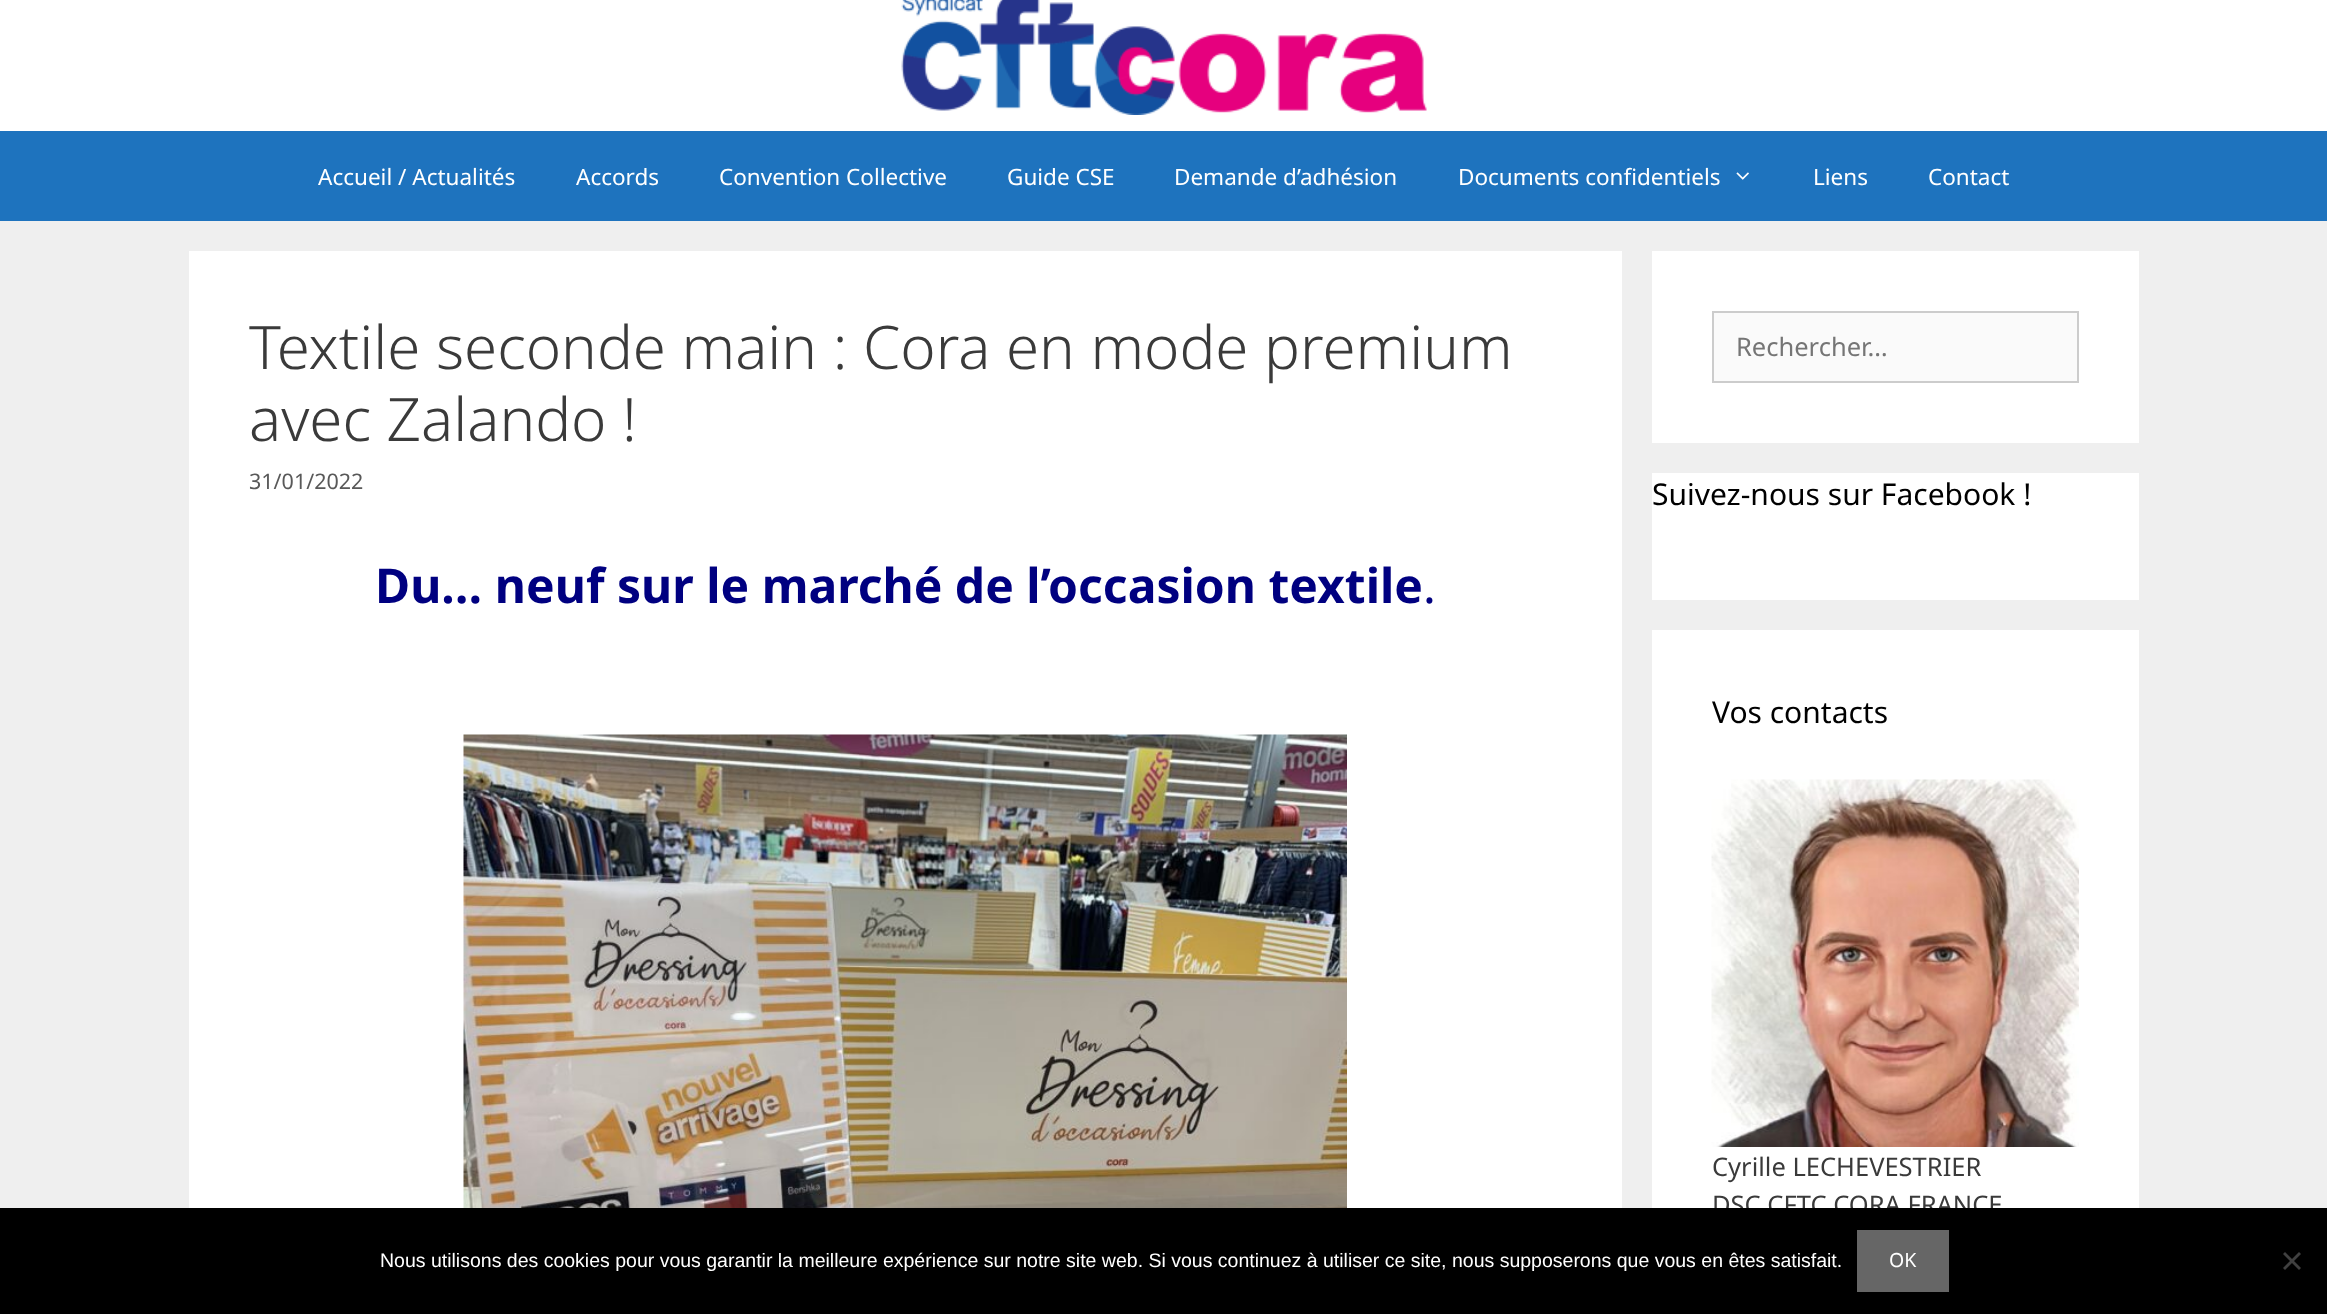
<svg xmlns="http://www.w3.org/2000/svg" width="2327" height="1314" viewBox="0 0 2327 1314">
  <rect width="100%" height="100%" fill="#efefef"/>
  <rect x="0" y="0" width="2327" height="131" fill="#ffffff"/>
  <image x="901" y="0" width="526" height="115" href="img1.png"/>
  <rect x="0" y="131" width="2327" height="90" fill="#1e73be"/>
  <text x="318" y="185" font-family="Noto Sans" font-size="22.5" fill="#ffffff">Accueil / Actualités</text>
  <text x="576" y="185" font-family="Noto Sans" font-size="22.5" fill="#ffffff">Accords</text>
  <text x="719" y="185" font-family="Noto Sans" font-size="22.5" fill="#ffffff">Convention Collective</text>
  <text x="1007" y="185" font-family="Noto Sans" font-size="22.5" fill="#ffffff">Guide CSE</text>
  <text x="1174" y="185" font-family="Noto Sans" font-size="22.5" fill="#ffffff">Demande d’adhésion</text>
  <text x="1458" y="185" font-family="Noto Sans" font-size="22.5" fill="#ffffff">Documents confidentiels</text>
  <image x="1736" y="172" width="13" height="8" href="img2.png"/>
  <text x="1813" y="185" font-family="Noto Sans" font-size="22.5" fill="#ffffff">Liens</text>
  <text x="1928" y="185" font-family="Noto Sans" font-size="22.5" fill="#ffffff">Contact</text>
  <rect x="189" y="251" width="1433" height="957" fill="#ffffff"/>
  <text x="249" y="369" font-family="Noto Sans" font-size="60" font-weight="300" fill="#3a3a3a">Textile seconde main : Cora en mode premium</text>
  <text x="249" y="441" font-family="Noto Sans" font-size="60" font-weight="300" fill="#3a3a3a">avec Zalando !</text>
  <text x="249" y="489" font-family="Noto Sans" font-size="21.5" fill="#595959">31/01/2022</text>
  <text x="375" y="603" font-family="Noto Sans" font-size="48" font-weight="bold" fill="#000080">Du… neuf sur le marché de l’occasion textile</text>
  <text x="1423" y="603" font-family="Noto Sans" font-size="48" fill="#000080">.</text>
  <image x="463" y="734" width="884" height="474" href="img3.png"/>
  <rect x="1652" y="251" width="487" height="192" fill="#ffffff"/>
  <rect x="1713" y="312" width="365" height="70" fill="#fafafa" stroke="#cccccc" stroke-width="2"/>
  <text x="1736" y="356" font-family="Noto Sans" font-size="25.5" fill="#757575">Rechercher…</text>
  <rect x="1652" y="473" width="487" height="127" fill="#ffffff"/>
  <text x="1652" y="505" font-family="Noto Sans" font-size="30" fill="#000000">Suivez-nous sur Facebook !</text>
  <rect x="1652" y="630" width="487" height="578" fill="#ffffff"/>
  <text x="1712" y="723" font-family="Noto Sans" font-size="30" fill="#000000">Vos contacts</text>
  <image x="1711" y="779" width="368" height="368" href="img4.png"/>
  <text x="1712" y="1176" font-family="Noto Sans" font-size="25.5" fill="#3a3a3a">Cyrille LECHEVESTRIER</text>
  <text x="1712" y="1214" font-family="Noto Sans" font-size="25.5" fill="#3a3a3a">DSC CFTC CORA FRANCE</text>
  <rect x="0" y="1208" width="2327" height="106" fill="#000000"/>
  <text x="380" y="1267" font-family="Liberation Sans" font-size="19.5" fill="#ffffff">Nous utilisons des cookies pour vous garantir la meilleure expérience sur notre site web. Si vous continuez à utiliser ce site, nous supposerons que vous en êtes satisfait.</text>
  <rect x="1857" y="1230" width="92" height="62" fill="#666666"/>
  <text x="1889" y="1267" font-family="Noto Sans" font-size="19.5" fill="#ffffff">OK</text>
  <path d="M2299 1252L2301 1254L2285 1270L2283 1268Z" fill="#404040"/>
  <path d="M2283 1254L2285 1252L2301 1268L2299 1270Z" fill="#404040"/>
</svg>
